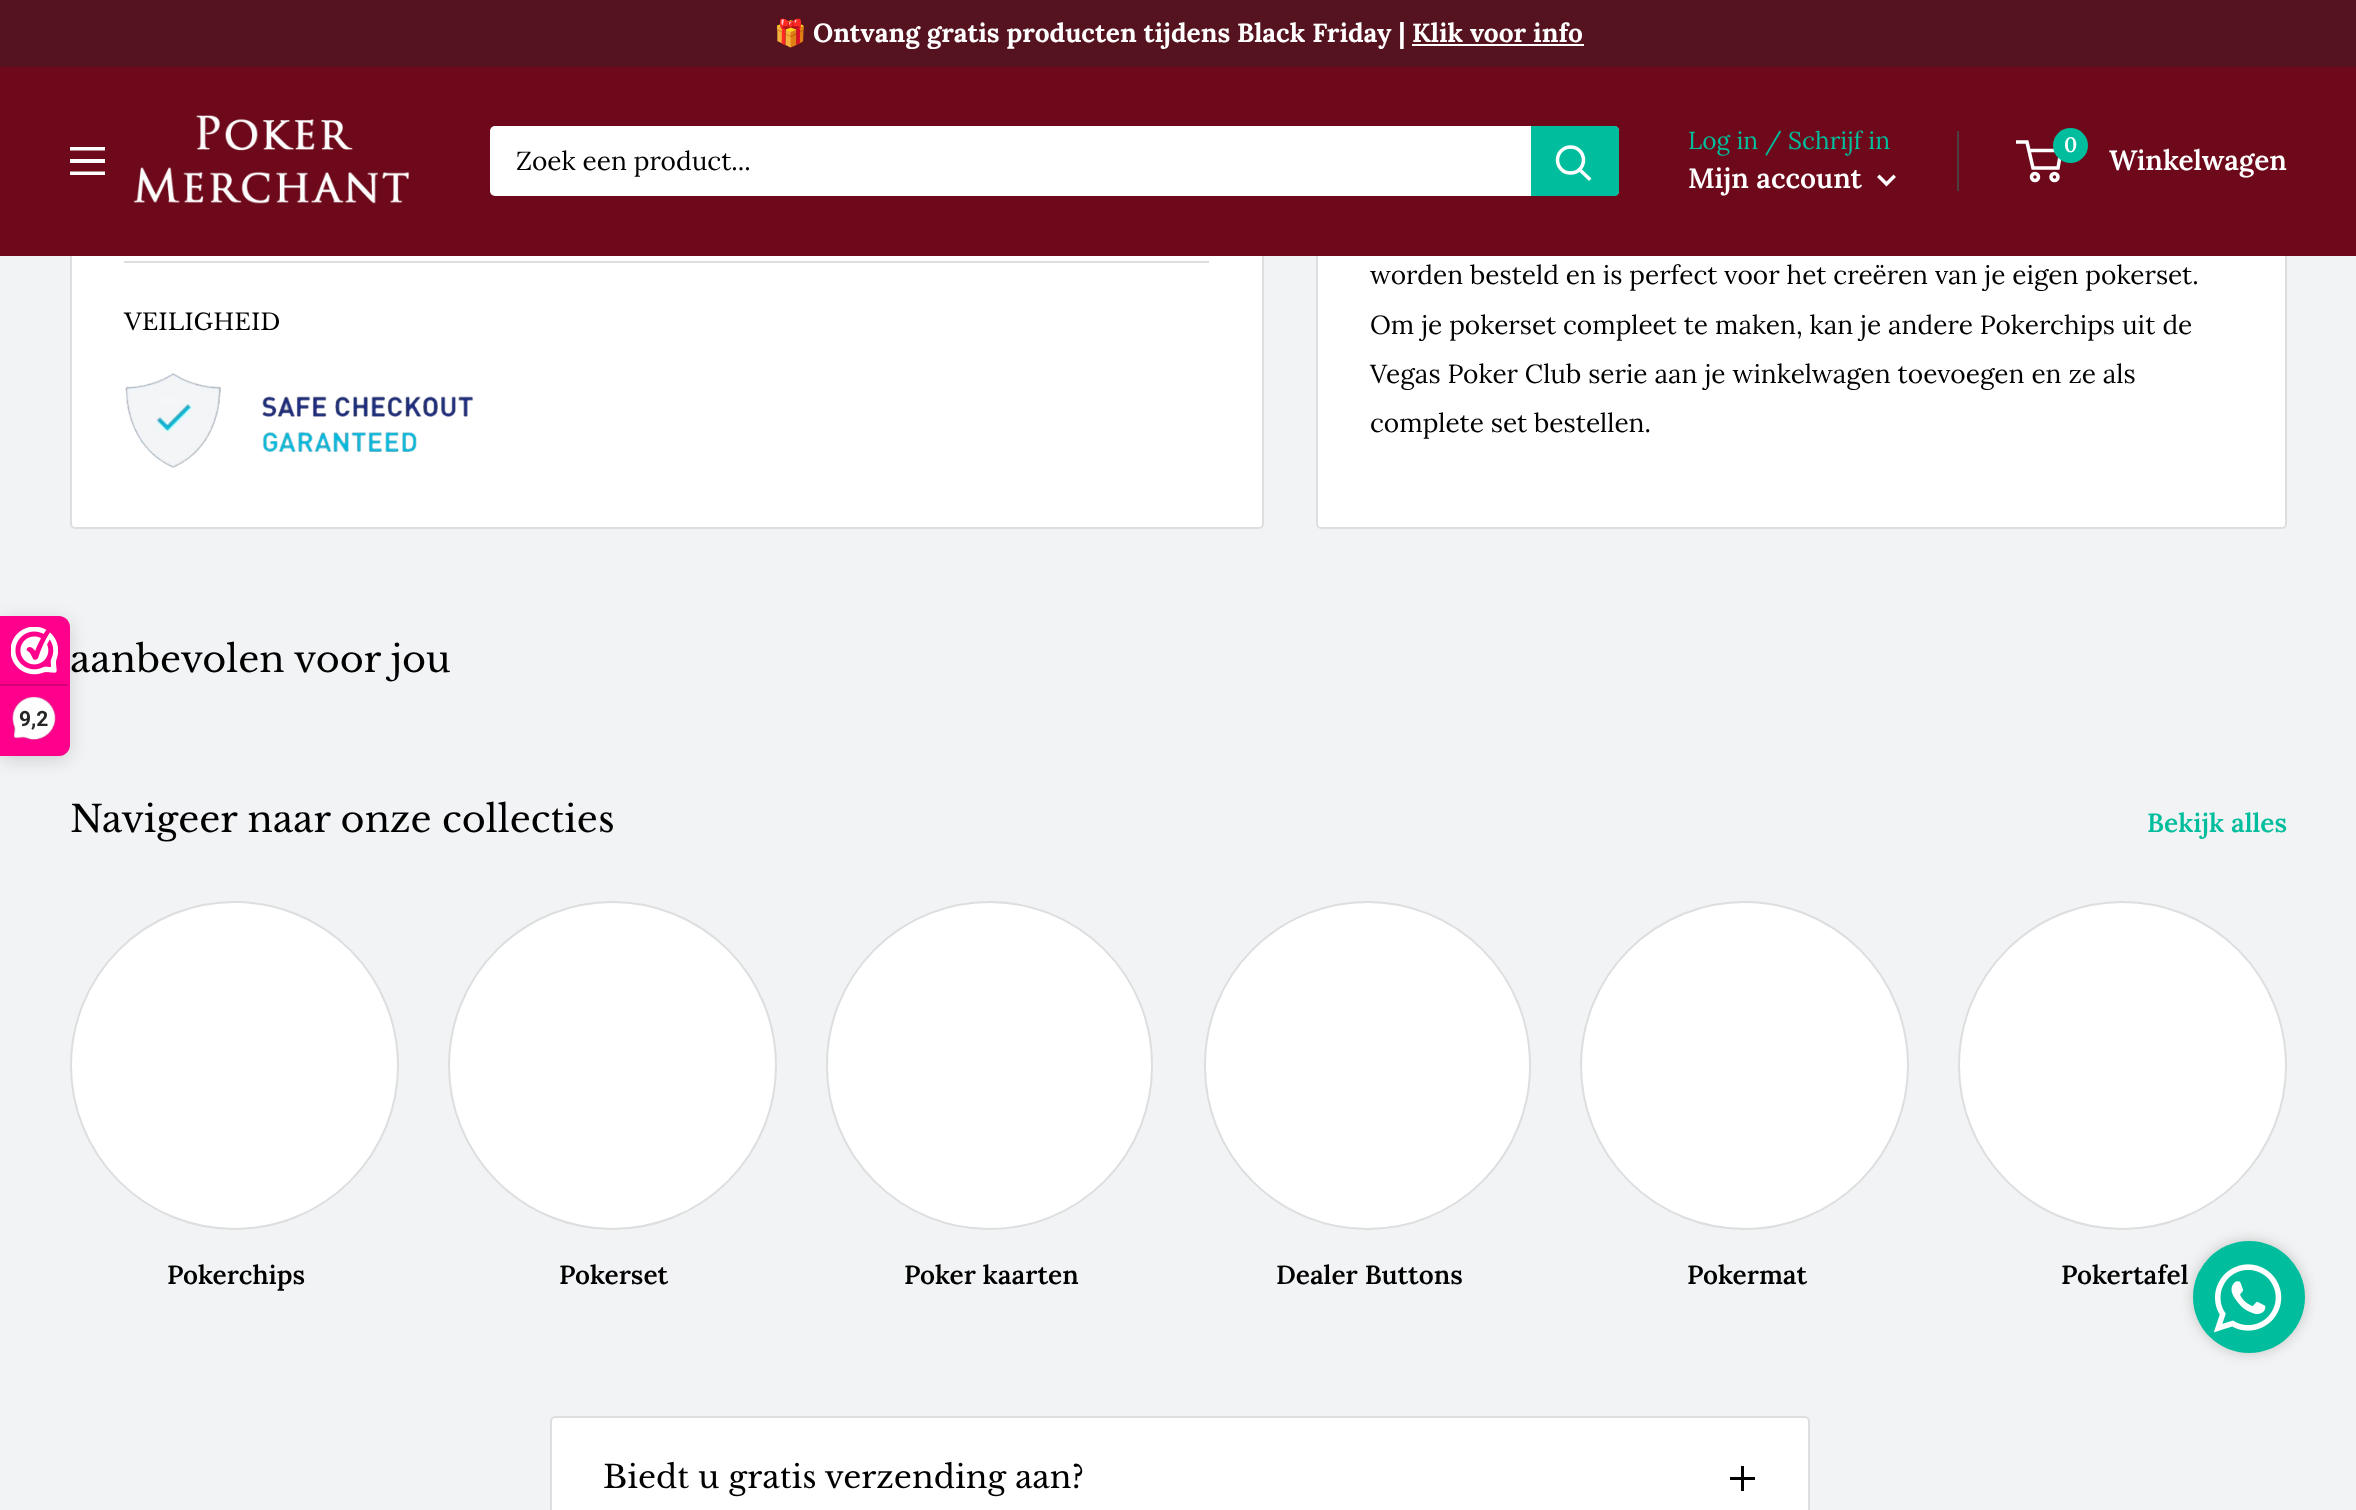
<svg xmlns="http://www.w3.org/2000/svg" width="2356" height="1510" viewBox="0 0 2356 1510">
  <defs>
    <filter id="blur1" x="-50%" y="-200%" width="200%" height="500%"><feGaussianBlur stdDeviation="9"/></filter>
    <filter id="blur2" x="-50%" y="-200%" width="200%" height="500%"><feGaussianBlur stdDeviation="7"/></filter>
  </defs>
  <rect width="100%" height="100%" fill="#f2f3f4"/>
  <rect x="71" y="-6" width="1192" height="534" rx="4" fill="#ffffff" stroke="#dcdedf" stroke-width="2"/>
  <rect x="1317" y="-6" width="969" height="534" rx="4" fill="#ffffff" stroke="#dcdedf" stroke-width="2"/>
  <rect x="0" y="0" width="2356" height="67" fill="#54131f"/>
  <text x="774" y="42" font-family="Noto Color Emoji" font-size="26.25" font-weight="bold" fill="#ffffff">🎁</text>
  <text x="813" y="42" font-family="Lora" font-size="26.25" font-weight="bold" fill="#ffffff">Ontvang gratis producten tijdens Black Friday | Klik voor info</text>
  <rect x="1412" y="44" width="172" height="2" fill="#ffffff"/>
  <rect x="0" y="67" width="2356" height="189" fill="#6d091a"/>
  <path d="M70 171.5H105V175H70ZM70 147H105V150.5H70ZM70 159H105V163H70Z" fill="#ffffff" fill-rule="evenodd"/>
  <image x="133" y="115" width="277" height="89" href="img1.png"/>
  <rect x="490" y="126" width="1129" height="70" rx="5" fill="#ffffff"/>
  <text x="516" y="170" font-family="Lora" font-size="26.25" fill="#000000">Zoek een product...</text>
  <path d="M1531 126H1614C1617 126 1619 128 1619 131V191C1619 194 1617 196 1614 196H1531Z" fill="#00be9d"/>
  <path d="M1589 178.5L1580 170" fill="none" stroke="#ffffff" stroke-width="3.5" stroke-linecap="square"/>
  <circle cx="1570.5" cy="160" r="13" fill="none" stroke="#ffffff" stroke-width="3.5"/>
  <text x="1688" y="149" font-family="Lora" font-size="24.5" fill="#00be9d">Log in / Schrijf in</text>
  <rect x="1957" y="131" width="2" height="60" fill="#4c3f41"/>
  <text x="1688" y="188" font-family="Lora" font-size="28" font-weight="600" fill="#ffffff">Mijn account</text>
  <path d="M1893.5 177L1886.5 184L1879.5 177" fill="none" stroke="#ffffff" stroke-width="3.5" stroke-linecap="square"/>
  <circle cx="2035" cy="177" r="3.5" fill="none" stroke="#ffffff" stroke-width="3.5"/>
  <circle cx="2054.5" cy="177" r="3.5" fill="none" stroke="#ffffff" stroke-width="3.5"/>
  <path d="M2029 150.5H2061L2058 168H2033L2027 142H2016" fill="none" stroke="#ffffff" stroke-width="3.5"/>
  <circle cx="2070.5" cy="145.5" r="17.5" fill="#00be9d"/>
  <text x="2064" y="152" font-family="Lora" font-size="21" font-weight="600" fill="#ffffff">0</text>
  <text x="2109" y="170" font-family="Lora" font-size="28" font-weight="600" fill="#ffffff">Winkelwagen</text>
  <rect x="0" y="620" width="70" height="140" rx="11" fill="#000000" fill-opacity="0.15" filter="url(#blur1)"/>
  <path d="M0 616H59C65 616 70 621 70 627V745C70 751 65 756 59 756H0Z" fill="#fe008c"/>
  <image x="11" y="627" width="47" height="48" href="img2.png"/>
  <rect x="0" y="684" width="68" height="2" fill="#d80077"/>
  <image x="12" y="696" width="44" height="45" href="img3.png"/>
  <text x="19" y="726" font-family="Roboto" font-size="21" font-weight="bold" fill="#272626">9,2</text>
  <rect x="124" y="261" width="1085" height="2" fill="#dcdedf"/>
  <text x="124" y="330" font-family="Libre Baskerville" font-size="22.75" fill="#000000">VEILIGHEID</text>
  <image x="125" y="373" width="349" height="95" href="img4.png"/>
  <text x="1370" y="284" font-family="Lora" font-size="26.25" fill="#000000">worden besteld en is perfect voor het creëren van je eigen pokerset.</text>
  <text x="1370" y="334" font-family="Lora" font-size="26.25" fill="#000000">Om je pokerset compleet te maken, kan je andere Pokerchips uit de</text>
  <text x="1370" y="383" font-family="Lora" font-size="26.25" fill="#000000">Vegas Poker Club serie aan je winkelwagen toevoegen en ze als</text>
  <text x="1370" y="432" font-family="Lora" font-size="26.25" fill="#000000">complete set bestellen.</text>
  <text x="70" y="672" font-family="Libre Baskerville" font-size="36.75" fill="#000000">aanbevolen voor jou</text>
  <text x="70" y="832" font-family="Libre Baskerville" font-size="36.75" fill="#000000">Navigeer naar onze collecties</text>
  <text x="2147" y="832" font-family="Lora" font-size="26.25" font-weight="600" fill="#00be9d">Bekijk alles</text>
  <circle cx="234.5" cy="1065.5" r="163.5" fill="#ffffff" stroke="#dcdedf" stroke-width="2"/>
  <text x="167" y="1284" font-family="Lora" font-size="26.25" font-weight="600" fill="#000000">Pokerchips</text>
  <circle cx="612.5" cy="1065.5" r="163.5" fill="#ffffff" stroke="#dcdedf" stroke-width="2"/>
  <text x="559" y="1284" font-family="Lora" font-size="26.25" font-weight="600" fill="#000000">Pokerset</text>
  <rect x="827" y="902" width="325" height="327" rx="162.5" fill="#ffffff" stroke="#dcdedf" stroke-width="2"/>
  <text x="904" y="1284" font-family="Lora" font-size="26.25" font-weight="600" fill="#000000">Poker kaarten</text>
  <rect x="1205" y="902" width="325" height="327" rx="162.5" fill="#ffffff" stroke="#dcdedf" stroke-width="2"/>
  <text x="1276" y="1284" font-family="Lora" font-size="26.25" font-weight="600" fill="#000000">Dealer Buttons</text>
  <circle cx="1744.5" cy="1065.5" r="163.5" fill="#ffffff" stroke="#dcdedf" stroke-width="2"/>
  <text x="1687" y="1284" font-family="Lora" font-size="26.25" font-weight="600" fill="#000000">Pokermat</text>
  <circle cx="2122.5" cy="1065.5" r="163.5" fill="#ffffff" stroke="#dcdedf" stroke-width="2"/>
  <text x="2061" y="1284" font-family="Lora" font-size="26.25" font-weight="600" fill="#000000">Pokertafel</text>
  <path d="M555 1417H1805C1807 1417 1809 1419 1809 1421V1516H551V1421C551 1419 553 1417 555 1417Z" fill="#ffffff" stroke="#dcdedf" stroke-width="2"/>
  <text x="603" y="1488" font-family="Libre Baskerville" font-size="31.5" fill="#000000">Biedt u gratis verzending aan?</text>
  <rect x="1741" y="1466" width="3" height="25" fill="#000000"/>
  <rect x="1730" y="1477" width="25" height="3" fill="#000000"/>
  <rect x="2193" y="1241" width="112" height="112" rx="56" fill="#c2c2c2" filter="url(#blur2)"/>
  <circle cx="2249" cy="1297" r="56" fill="#00be9d"/>
  <image x="2213" y="1264" width="69" height="69" href="img5.png"/>
</svg>
